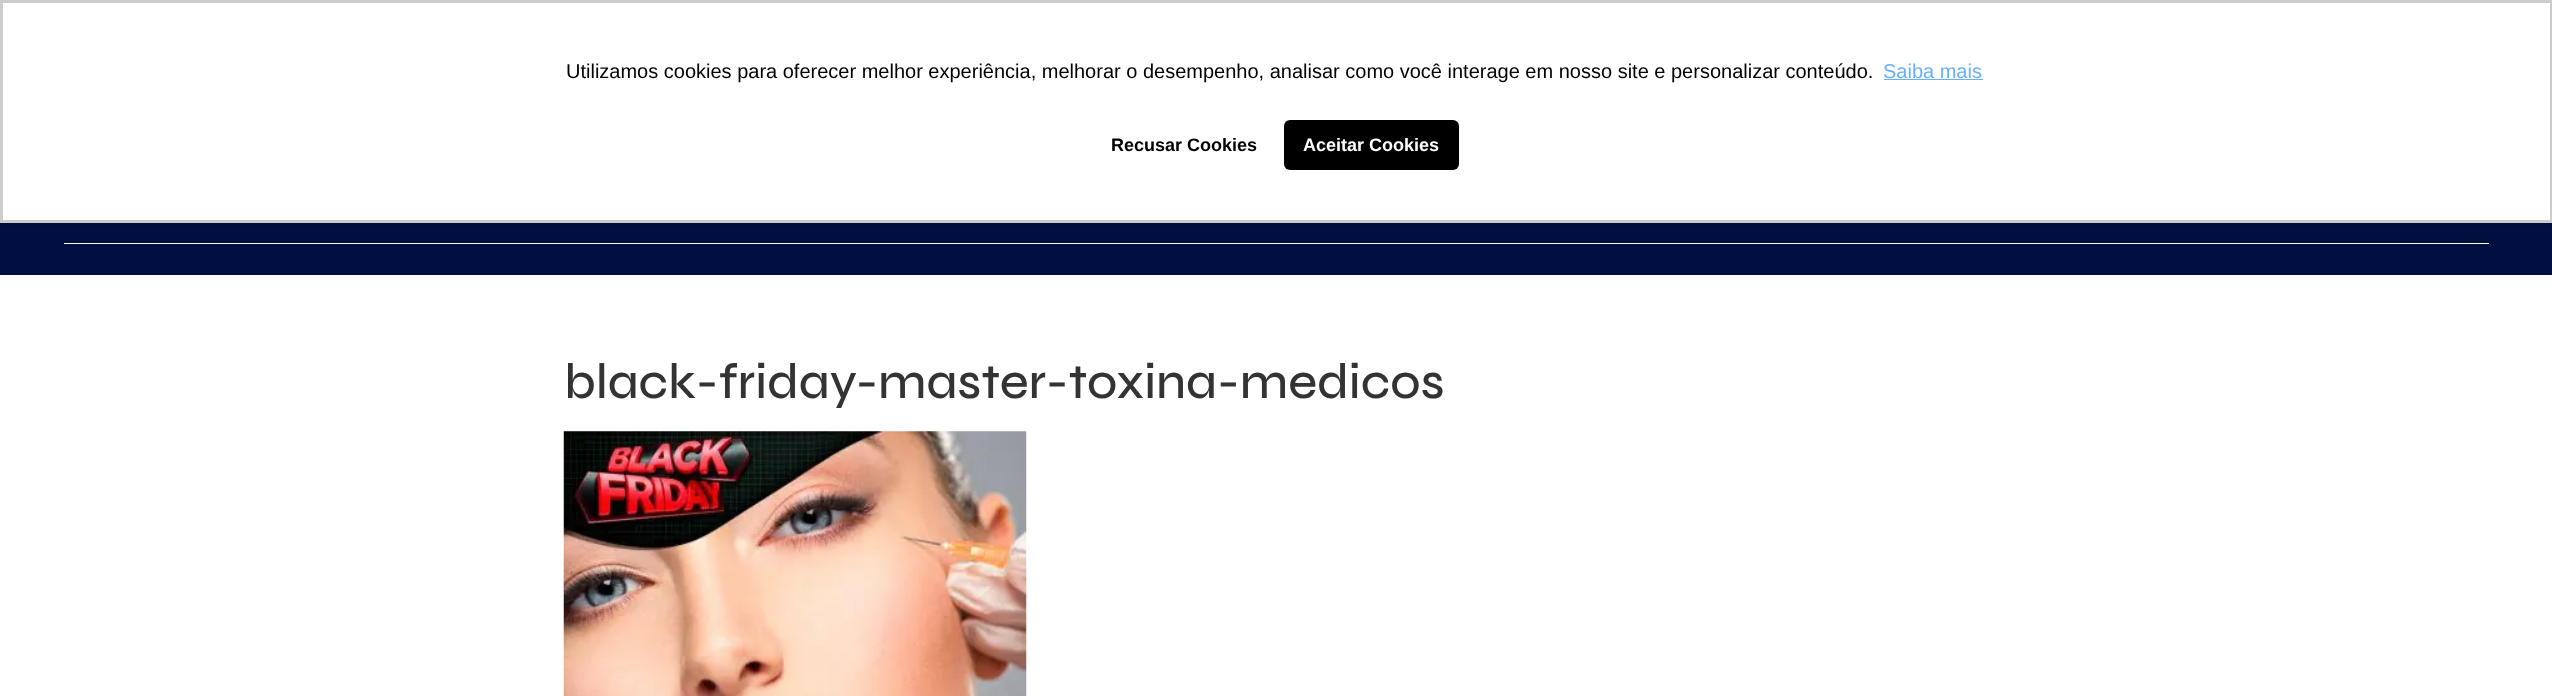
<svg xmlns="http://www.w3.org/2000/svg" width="2552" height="696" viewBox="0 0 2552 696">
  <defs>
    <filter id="blur1" x="-50%" y="-200%" width="200%" height="500%"><feGaussianBlur stdDeviation="2.5"/></filter>
  </defs>
  <rect width="100%" height="100%" fill="#ffffff"/>
  <rect x="0" y="223" width="2552" height="52" fill="#000e40"/>
  <rect x="1" y="3" width="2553" height="222" fill="#000000" fill-opacity="0.1" filter="url(#blur1)"/>
  <rect x="1.5" y="1.5" width="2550" height="220" fill="#ffffff" stroke="#cccccc" stroke-width="3"/>
  <text x="566" y="78" font-family="Liberation Sans" font-size="20" fill="#000000">Utilizamos cookies para oferecer melhor experiência, melhorar o desempenho, analisar como você interage em nosso site e personalizar conteúdo.</text>
  <text x="1883" y="78" font-family="Liberation Sans" font-size="20" fill="#66b0ff">Saiba mais</text>
  <rect x="1884" y="79" width="99" height="1" fill="#66b0ff"/>
  <text x="1111" y="151" font-family="Liberation Sans" font-size="18" font-weight="bold" fill="#000000">Recusar Cookies</text>
  <rect x="1284" y="120" width="175" height="50" rx="6" fill="#000000"/>
  <text x="1303" y="151" font-family="Liberation Sans" font-size="18" font-weight="bold" fill="#ffffff">Aceitar Cookies</text>
  <rect x="64" y="243" width="2425" height="1" fill="#ffffff"/>
  <text x="564" y="398" font-family="Syne" font-size="50" font-weight="500" fill="#333333">black-friday-master-toxina-medicos</text>
  <image x="563" y="431" width="464" height="265" href="img1.png"/>
</svg>
